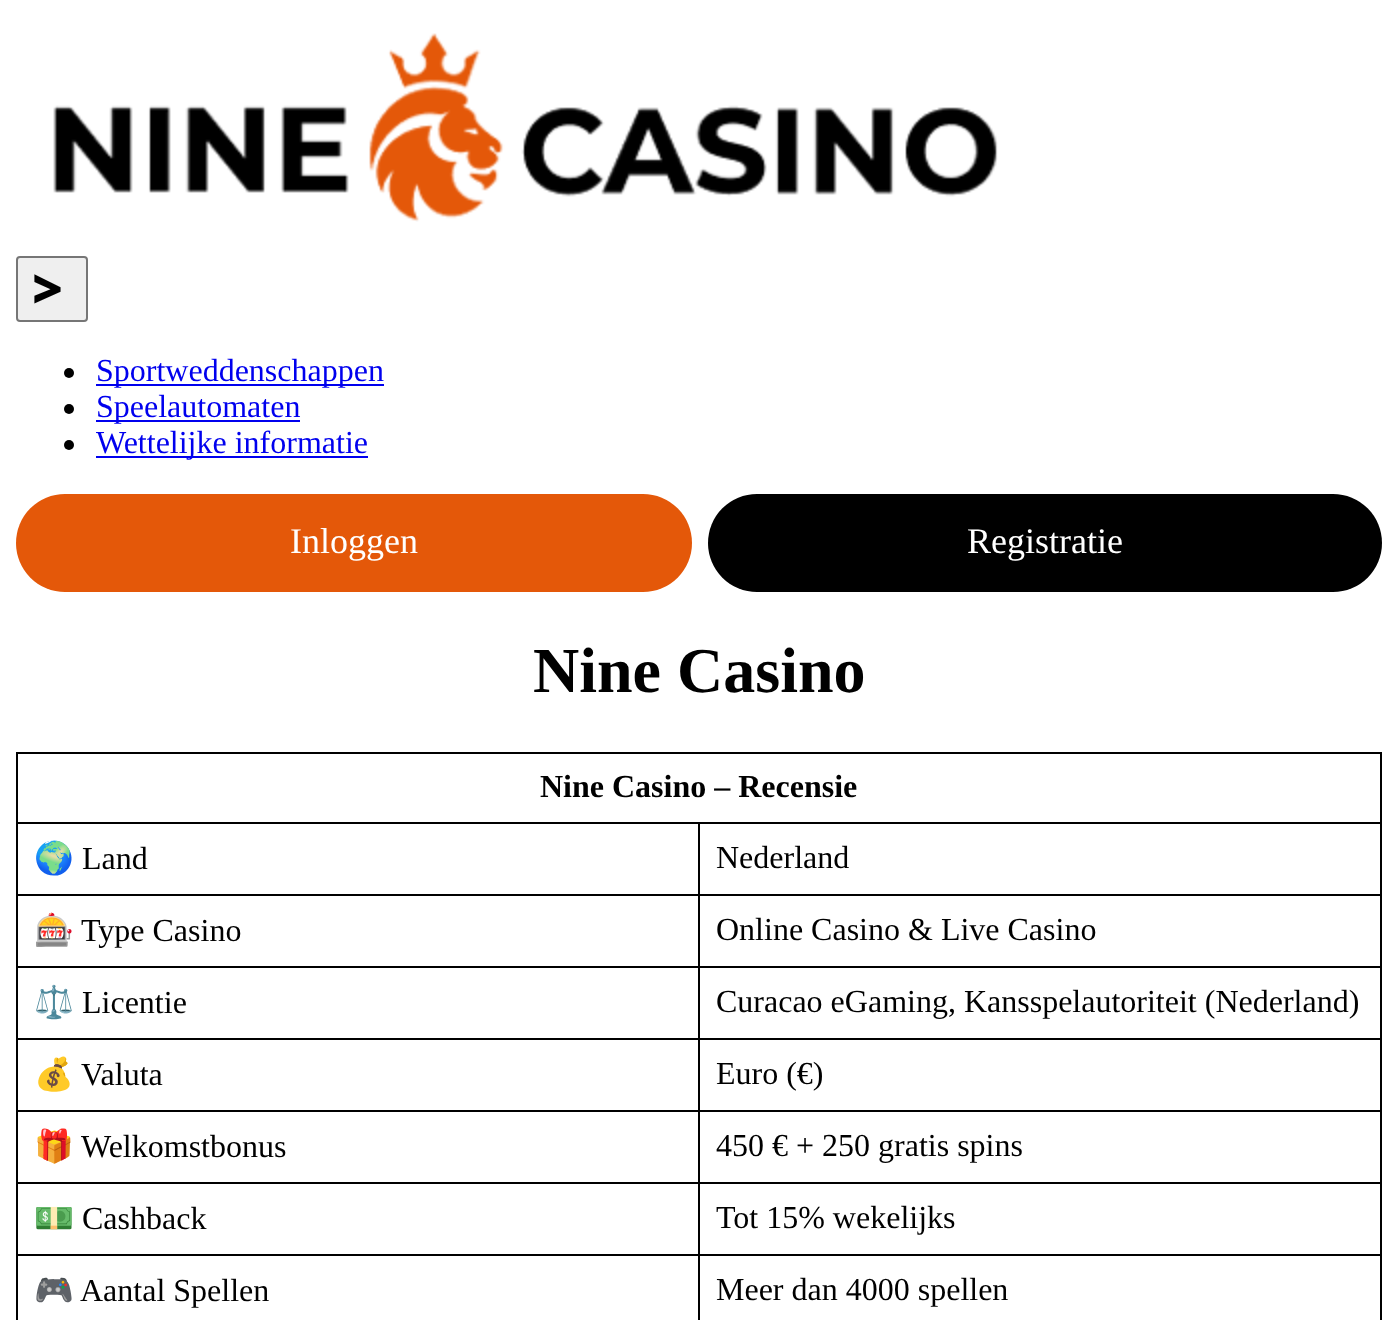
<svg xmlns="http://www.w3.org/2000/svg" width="1397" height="1320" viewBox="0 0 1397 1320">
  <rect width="100%" height="100%" fill="#ffffff"/>
  <image x="53" y="33" width="945" height="189" href="img1.png"/>
  <rect x="17" y="257" width="70" height="64" rx="3" fill="#efefef" stroke="#767676" stroke-width="2"/>
  <text x="32" y="308" font-family="Noto Sans" font-size="53" font-weight="900" fill="#000000">&gt;</text>
  <circle cx="69" cy="373" r="5" fill="#000000"/>
  <rect x="96" y="384" width="288" height="2" fill="#0000ee"/>
  <text x="96" y="381" font-family="Liberation Serif" font-size="32" fill="#0000ee">Sportweddenschappen</text>
  <circle cx="69" cy="409" r="5" fill="#000000"/>
  <rect x="96" y="420" width="204" height="2" fill="#0000ee"/>
  <text x="96" y="417" font-family="Liberation Serif" font-size="32" fill="#0000ee">Speelautomaten</text>
  <circle cx="69" cy="445" r="5" fill="#000000"/>
  <rect x="96" y="456" width="272" height="2" fill="#0000ee"/>
  <text x="96" y="453" font-family="Liberation Serif" font-size="32" fill="#0000ee">Wettelijke informatie</text>
  <rect x="16" y="494" width="676" height="98" rx="49" fill="#e45809"/>
  <text x="290" y="553" font-family="Liberation Serif" font-size="36" fill="#ffffff">Inloggen</text>
  <rect x="708" y="494" width="674" height="98" rx="49" fill="#000000"/>
  <text x="967" y="553" font-family="Liberation Serif" font-size="36" fill="#ffffff">Registratie</text>
  <text x="533" y="692" font-family="Liberation Serif" font-size="64" font-weight="bold" fill="#000000">Nine Casino</text>
  <rect x="16" y="752" width="1366" height="2" fill="#000000"/>
  <rect x="698" y="822" width="684" height="2" fill="#000000"/>
  <rect x="698" y="894" width="684" height="2" fill="#000000"/>
  <rect x="698" y="966" width="684" height="2" fill="#000000"/>
  <rect x="698" y="1038" width="684" height="2" fill="#000000"/>
  <rect x="698" y="1110" width="684" height="2" fill="#000000"/>
  <rect x="698" y="1182" width="684" height="2" fill="#000000"/>
  <rect x="698" y="1254" width="684" height="2" fill="#000000"/>
  <rect x="1380" y="1254" width="2" height="66" fill="#000000"/>
  <rect x="1380" y="1182" width="2" height="74" fill="#000000"/>
  <rect x="1380" y="1110" width="2" height="74" fill="#000000"/>
  <rect x="1380" y="1038" width="2" height="74" fill="#000000"/>
  <rect x="1380" y="966" width="2" height="74" fill="#000000"/>
  <rect x="1380" y="894" width="2" height="74" fill="#000000"/>
  <rect x="1380" y="822" width="2" height="74" fill="#000000"/>
  <rect x="1380" y="752" width="2" height="72" fill="#000000"/>
  <rect x="698" y="1254" width="2" height="66" fill="#000000"/>
  <rect x="16" y="1254" width="684" height="2" fill="#000000"/>
  <rect x="698" y="1182" width="2" height="74" fill="#000000"/>
  <rect x="16" y="1182" width="684" height="2" fill="#000000"/>
  <rect x="698" y="1110" width="2" height="74" fill="#000000"/>
  <rect x="16" y="1110" width="684" height="2" fill="#000000"/>
  <rect x="698" y="1038" width="2" height="74" fill="#000000"/>
  <rect x="16" y="1038" width="684" height="2" fill="#000000"/>
  <rect x="698" y="966" width="2" height="74" fill="#000000"/>
  <rect x="16" y="966" width="684" height="2" fill="#000000"/>
  <rect x="698" y="894" width="2" height="74" fill="#000000"/>
  <rect x="16" y="894" width="684" height="2" fill="#000000"/>
  <rect x="698" y="822" width="2" height="74" fill="#000000"/>
  <rect x="16" y="822" width="684" height="2" fill="#000000"/>
  <rect x="16" y="1254" width="2" height="66" fill="#000000"/>
  <rect x="16" y="1182" width="2" height="74" fill="#000000"/>
  <rect x="16" y="1110" width="2" height="74" fill="#000000"/>
  <rect x="16" y="1038" width="2" height="74" fill="#000000"/>
  <rect x="16" y="966" width="2" height="74" fill="#000000"/>
  <rect x="16" y="894" width="2" height="74" fill="#000000"/>
  <rect x="16" y="822" width="2" height="74" fill="#000000"/>
  <rect x="16" y="752" width="2" height="72" fill="#000000"/>
  <text x="540" y="797" font-family="Liberation Serif" font-size="32" font-weight="bold" fill="#000000">Nine Casino – Recensie</text>
  <text x="34" y="869" font-family="Noto Color Emoji" font-size="32" fill="#000000">🌍</text>
  <text x="82" y="869" font-family="Liberation Serif" font-size="32" fill="#000000">Land</text>
  <text x="716" y="868" font-family="Liberation Serif" font-size="32" fill="#000000">Nederland</text>
  <text x="34" y="941" font-family="Noto Color Emoji" font-size="32" fill="#000000">🎰</text>
  <text x="81" y="941" font-family="Liberation Serif" font-size="32" fill="#000000">Type Casino</text>
  <text x="716" y="940" font-family="Liberation Serif" font-size="32" fill="#000000">Online Casino &amp; Live Casino</text>
  <text x="34" y="1013" font-family="Noto Color Emoji" font-size="32" fill="#000000">⚖️</text>
  <text x="82" y="1013" font-family="Liberation Serif" font-size="32" fill="#000000">Licentie</text>
  <text x="716" y="1012" font-family="Liberation Serif" font-size="32" fill="#000000">Curacao eGaming, Kansspelautoriteit (Nederland)</text>
  <text x="34" y="1085" font-family="Noto Color Emoji" font-size="32" fill="#000000">💰</text>
  <text x="81" y="1085" font-family="Liberation Serif" font-size="32" fill="#000000">Valuta</text>
  <text x="716" y="1084" font-family="Liberation Serif" font-size="32" fill="#000000">Euro (€)</text>
  <text x="34" y="1157" font-family="Noto Color Emoji" font-size="32" fill="#000000">🎁</text>
  <text x="81" y="1157" font-family="Liberation Serif" font-size="32" fill="#000000">Welkomstbonus</text>
  <text x="716" y="1156" font-family="Liberation Serif" font-size="32" fill="#000000">450 € + 250 gratis spins</text>
  <text x="34" y="1229" font-family="Noto Color Emoji" font-size="32" fill="#000000">💵</text>
  <text x="82" y="1229" font-family="Liberation Serif" font-size="32" fill="#000000">Cashback</text>
  <text x="716" y="1228" font-family="Liberation Serif" font-size="32" fill="#000000">Tot 15% wekelijks</text>
  <text x="34" y="1301" font-family="Noto Color Emoji" font-size="32" fill="#000000">🎮</text>
  <text x="80" y="1301" font-family="Liberation Serif" font-size="32" fill="#000000">Aantal Spellen</text>
  <text x="716" y="1300" font-family="Liberation Serif" font-size="32" fill="#000000">Meer dan 4000 spellen</text>
</svg>
